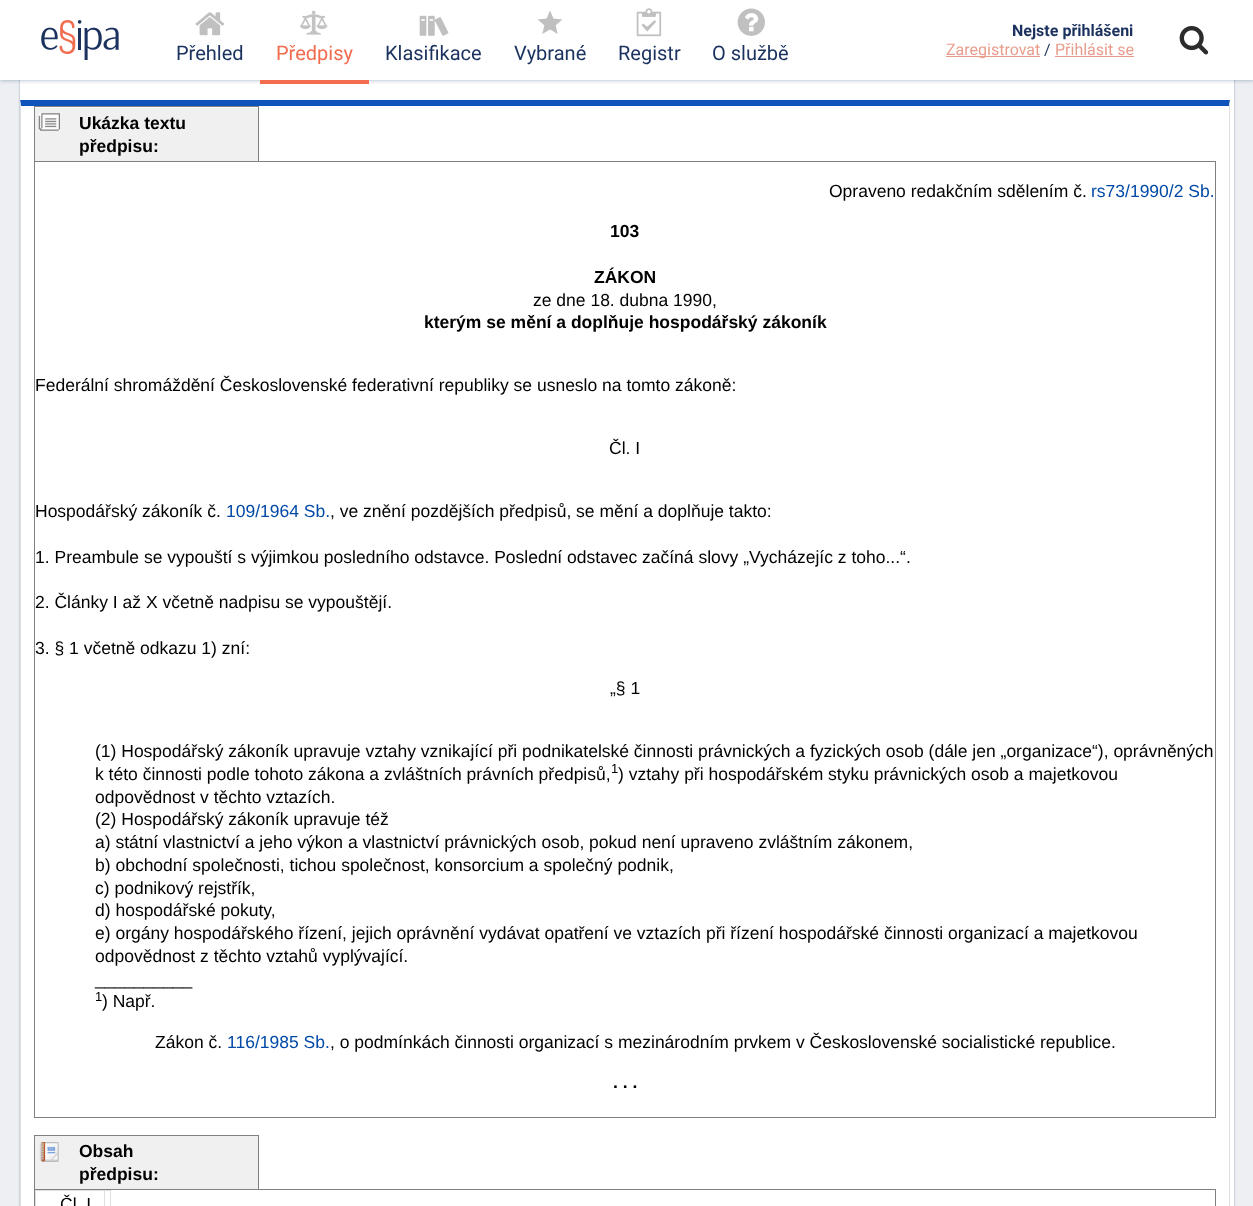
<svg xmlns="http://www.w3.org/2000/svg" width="1253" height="1206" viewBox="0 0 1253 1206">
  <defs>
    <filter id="blur1" x="-50%" y="-200%" width="200%" height="500%"><feGaussianBlur stdDeviation="1"/></filter>
    <filter id="blur2" x="-50%" y="-200%" width="200%" height="500%"><feGaussianBlur stdDeviation="2"/></filter>
  </defs>
  <rect width="100%" height="100%" fill="#edeff2"/>
  <rect x="20" y="-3" width="1214" height="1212" fill="#1b325f" fill-opacity="0.4" filter="url(#blur1)"/>
  <rect x="20" y="80" width="1214" height="1126" fill="#ffffff"/>
  <rect x="0" y="0" width="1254" height="80" fill="#1b325f" fill-opacity="0.4" filter="url(#blur2)"/>
  <rect x="0" y="0" width="1253" height="80" fill="#ffffff"/>
  <image x="41" y="20" width="78" height="40" href="img1.png"/>
  <image x="195" y="12" width="30" height="24" href="img2.png"/>
  <text x="176" y="60" font-family="Roboto" font-size="20" fill="#1b325f">Přehled</text>
  <path d="M260 80V84H369V4V80Z" fill="#f26c4f"/>
  <image x="300" y="10" width="28" height="25" href="img3.png"/>
  <text x="276" y="60" font-family="Roboto" font-size="20" fill="#f26c4f">Předpisy</text>
  <image x="419" y="15" width="30" height="21" href="img4.png"/>
  <text x="385" y="60" font-family="Roboto" font-size="20" fill="#1b325f">Klasifikace</text>
  <image x="537" y="10" width="26" height="24" href="img5.png"/>
  <text x="514" y="60" font-family="Roboto" font-size="20" fill="#1b325f">Vybrané</text>
  <image x="636" y="8" width="26" height="29" href="img6.png"/>
  <text x="618" y="60" font-family="Roboto" font-size="20" fill="#1b325f">Registr</text>
  <image x="737" y="8" width="28" height="28" href="img7.png"/>
  <text x="712" y="60" font-family="Roboto" font-size="20" fill="#1b325f">O službě</text>
  <text x="1012" y="36" font-family="Roboto" font-size="16" font-weight="bold" fill="#1b325f">Nejste přihlášeni</text>
  <rect x="946" y="56" width="94" height="1" fill="#e89d8c"/>
  <text x="946" y="55" font-family="Roboto" font-size="16" fill="#e89d8c">Zaregistrovat</text>
  <text x="1044" y="55" font-family="Roboto" font-size="16" fill="#1b325f">/</text>
  <text x="1055" y="55" font-family="Roboto" font-size="16" fill="#e89d8c">Přihlásit se</text>
  <rect x="1055" y="56" width="79" height="1" fill="#e89d8c"/>
  <image x="1179" y="26" width="30" height="29" href="img8.png"/>
  <path d="M20 100H1230L1229 106H21Z" fill="#0e53bb"/>
  <path d="M1230 100V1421L1229 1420V106Z" fill="#dfdfdf"/>
  <path d="M20 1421V100L21 106V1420Z" fill="#dfdfdf"/>
  <rect x="35" y="108" width="223" height="53" fill="#f0f0f0"/>
  <image x="38" y="113" width="22" height="18" href="img9.png"/>
  <rect x="34" y="106" width="225" height="1" fill="#808080"/>
  <rect x="258" y="106" width="1" height="55" fill="#808080"/>
  <rect x="34" y="106" width="1" height="55" fill="#808080"/>
  <text x="79" y="129" font-family="Liberation Sans" font-size="17.5" font-weight="bold" fill="#000000">Ukázka textu</text>
  <text x="79" y="152" font-family="Liberation Sans" font-size="17.5" font-weight="bold" fill="#000000">předpisu:</text>
  <rect x="34.5" y="161.5" width="1181" height="956" fill="none" stroke="#808080"/>
  <text x="829" y="197" font-family="Liberation Sans" font-size="17.5" fill="#000000">Opraveno redakčním sdělením č.</text>
  <text x="1091" y="197" font-family="Liberation Sans" font-size="17.5" fill="#0049a7">rs73/1990/2 Sb.</text>
  <text x="610" y="237" font-family="Liberation Sans" font-size="17.5" font-weight="bold" fill="#000000">103</text>
  <text x="594" y="283" font-family="Liberation Sans" font-size="17.5" font-weight="bold" fill="#000000">ZÁKON</text>
  <text x="533" y="306" font-family="Liberation Sans" font-size="17.5" fill="#000000">ze dne 18. dubna 1990,</text>
  <text x="424" y="328" font-family="Liberation Sans" font-size="17.5" font-weight="bold" fill="#000000">kterým se mění a doplňuje hospodářský zákoník</text>
  <text x="35" y="391" font-family="Liberation Sans" font-size="17.5" fill="#000000">Federální shromáždění Československé federativní republiky se usneslo na tomto zákoně:</text>
  <text x="609" y="454" font-family="Liberation Sans" font-size="17.5" fill="#000000">Čl. I</text>
  <text x="35" y="517" font-family="Liberation Sans" font-size="17.5" fill="#000000">Hospodářský zákoník č.</text>
  <text x="226" y="517" font-family="Liberation Sans" font-size="17.5" fill="#0049a7">109/1964 Sb.</text>
  <text x="330" y="517" font-family="Liberation Sans" font-size="17.5" fill="#000000">, ve znění pozdějších předpisů, se mění a doplňuje takto:</text>
  <text x="35" y="563" font-family="Liberation Sans" font-size="17.5" fill="#000000">1. Preambule se vypouští s výjimkou posledního odstavce. Poslední odstavec začíná slovy „Vycházejíc z toho...“.</text>
  <text x="35" y="608" font-family="Liberation Sans" font-size="17.5" fill="#000000">2. Články I až X včetně nadpisu se vypouštějí.</text>
  <text x="35" y="654" font-family="Liberation Sans" font-size="17.5" fill="#000000">3. § 1 včetně odkazu 1) zní:</text>
  <text x="610" y="694" font-family="Liberation Sans" font-size="17.5" fill="#000000">„§ 1</text>
  <text x="95" y="757" font-family="Liberation Sans" font-size="17.5" fill="#000000">(1) Hospodářský zákoník upravuje vztahy vznikající při podnikatelské činnosti právnických a fyzických osob (dále jen „organizace“), oprávněných</text>
  <text x="95" y="780" font-family="Liberation Sans" font-size="17.5" fill="#000000">k této činnosti podle tohoto zákona a zvláštních právních předpisů,</text>
  <text x="611" y="773" font-family="Liberation Sans" font-size="13" fill="#000000">1</text>
  <text x="618" y="780" font-family="Liberation Sans" font-size="17.5" fill="#000000">) vztahy při hospodářském styku právnických osob a majetkovou</text>
  <text x="95" y="803" font-family="Liberation Sans" font-size="17.5" fill="#000000">odpovědnost v těchto vztazích.</text>
  <text x="95" y="825" font-family="Liberation Sans" font-size="17.5" fill="#000000">(2) Hospodářský zákoník upravuje též</text>
  <text x="95" y="848" font-family="Liberation Sans" font-size="17.5" fill="#000000">a) státní vlastnictví a jeho výkon a vlastnictví právnických osob, pokud není upraveno zvláštním zákonem,</text>
  <text x="95" y="871" font-family="Liberation Sans" font-size="17.5" fill="#000000">b) obchodní společnosti, tichou společnost, konsorcium a společný podnik,</text>
  <text x="95" y="894" font-family="Liberation Sans" font-size="17.5" fill="#000000">c) podnikový rejstřík,</text>
  <text x="95" y="916" font-family="Liberation Sans" font-size="17.5" fill="#000000">d) hospodářské pokuty,</text>
  <text x="95" y="939" font-family="Liberation Sans" font-size="17.5" fill="#000000">e) orgány hospodářského řízení, jejich oprávnění vydávat opatření ve vztazích při řízení hospodářské činnosti organizací a majetkovou</text>
  <text x="95" y="962" font-family="Liberation Sans" font-size="17.5" fill="#000000">odpovědnost z těchto vztahů vyplývající.</text>
  <text x="95" y="985" font-family="Liberation Sans" font-size="17.5" fill="#000000">__________</text>
  <text x="95" y="1001" font-family="Liberation Sans" font-size="13" fill="#000000">1</text>
  <text x="102" y="1007" font-family="Liberation Sans" font-size="17.5" fill="#000000">) Např.</text>
  <text x="155" y="1048" font-family="Liberation Sans" font-size="17.5" fill="#000000">Zákon č.</text>
  <text x="227" y="1048" font-family="Liberation Sans" font-size="17.5" fill="#0049a7">116/1985 Sb.</text>
  <text x="330" y="1048" font-family="Liberation Sans" font-size="17.5" fill="#000000">, o podmínkách činnosti organizací s mezinárodním prvkem v Československé socialistické republice.</text>
  <text x="613" y="1088" font-family="Liberation Sans" font-size="17.5" font-weight="bold" fill="#000000">. . .</text>
  <rect x="35" y="1136" width="223" height="53" fill="#f0f0f0"/>
  <image x="39" y="1142" width="20" height="20" href="img10.png"/>
  <rect x="34" y="1135" width="225" height="1" fill="#808080"/>
  <rect x="258" y="1135" width="1" height="54" fill="#808080"/>
  <rect x="34" y="1135" width="1" height="54" fill="#808080"/>
  <text x="79" y="1157" font-family="Liberation Sans" font-size="17.5" font-weight="bold" fill="#000000">Obsah</text>
  <text x="79" y="1180" font-family="Liberation Sans" font-size="17.5" font-weight="bold" fill="#000000">předpisu:</text>
  <rect x="34.5" y="1189.5" width="1181" height="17" fill="none" stroke="#808080"/>
  <rect x="104" y="1190" width="7" height="1" fill="#dfdfdf"/>
  <rect x="104" y="1190" width="1" height="16" fill="#dfdfdf"/>
  <rect x="35" y="1190" width="70" height="1" fill="#dfdfdf"/>
  <rect x="35" y="1190" width="1" height="16" fill="#dfdfdf"/>
  <text x="60" y="1210" font-family="Liberation Sans" font-size="17.5" fill="#000000">Čl. I</text>
  <rect x="110" y="1190" width="1" height="16" fill="#dfdfdf"/>
</svg>
